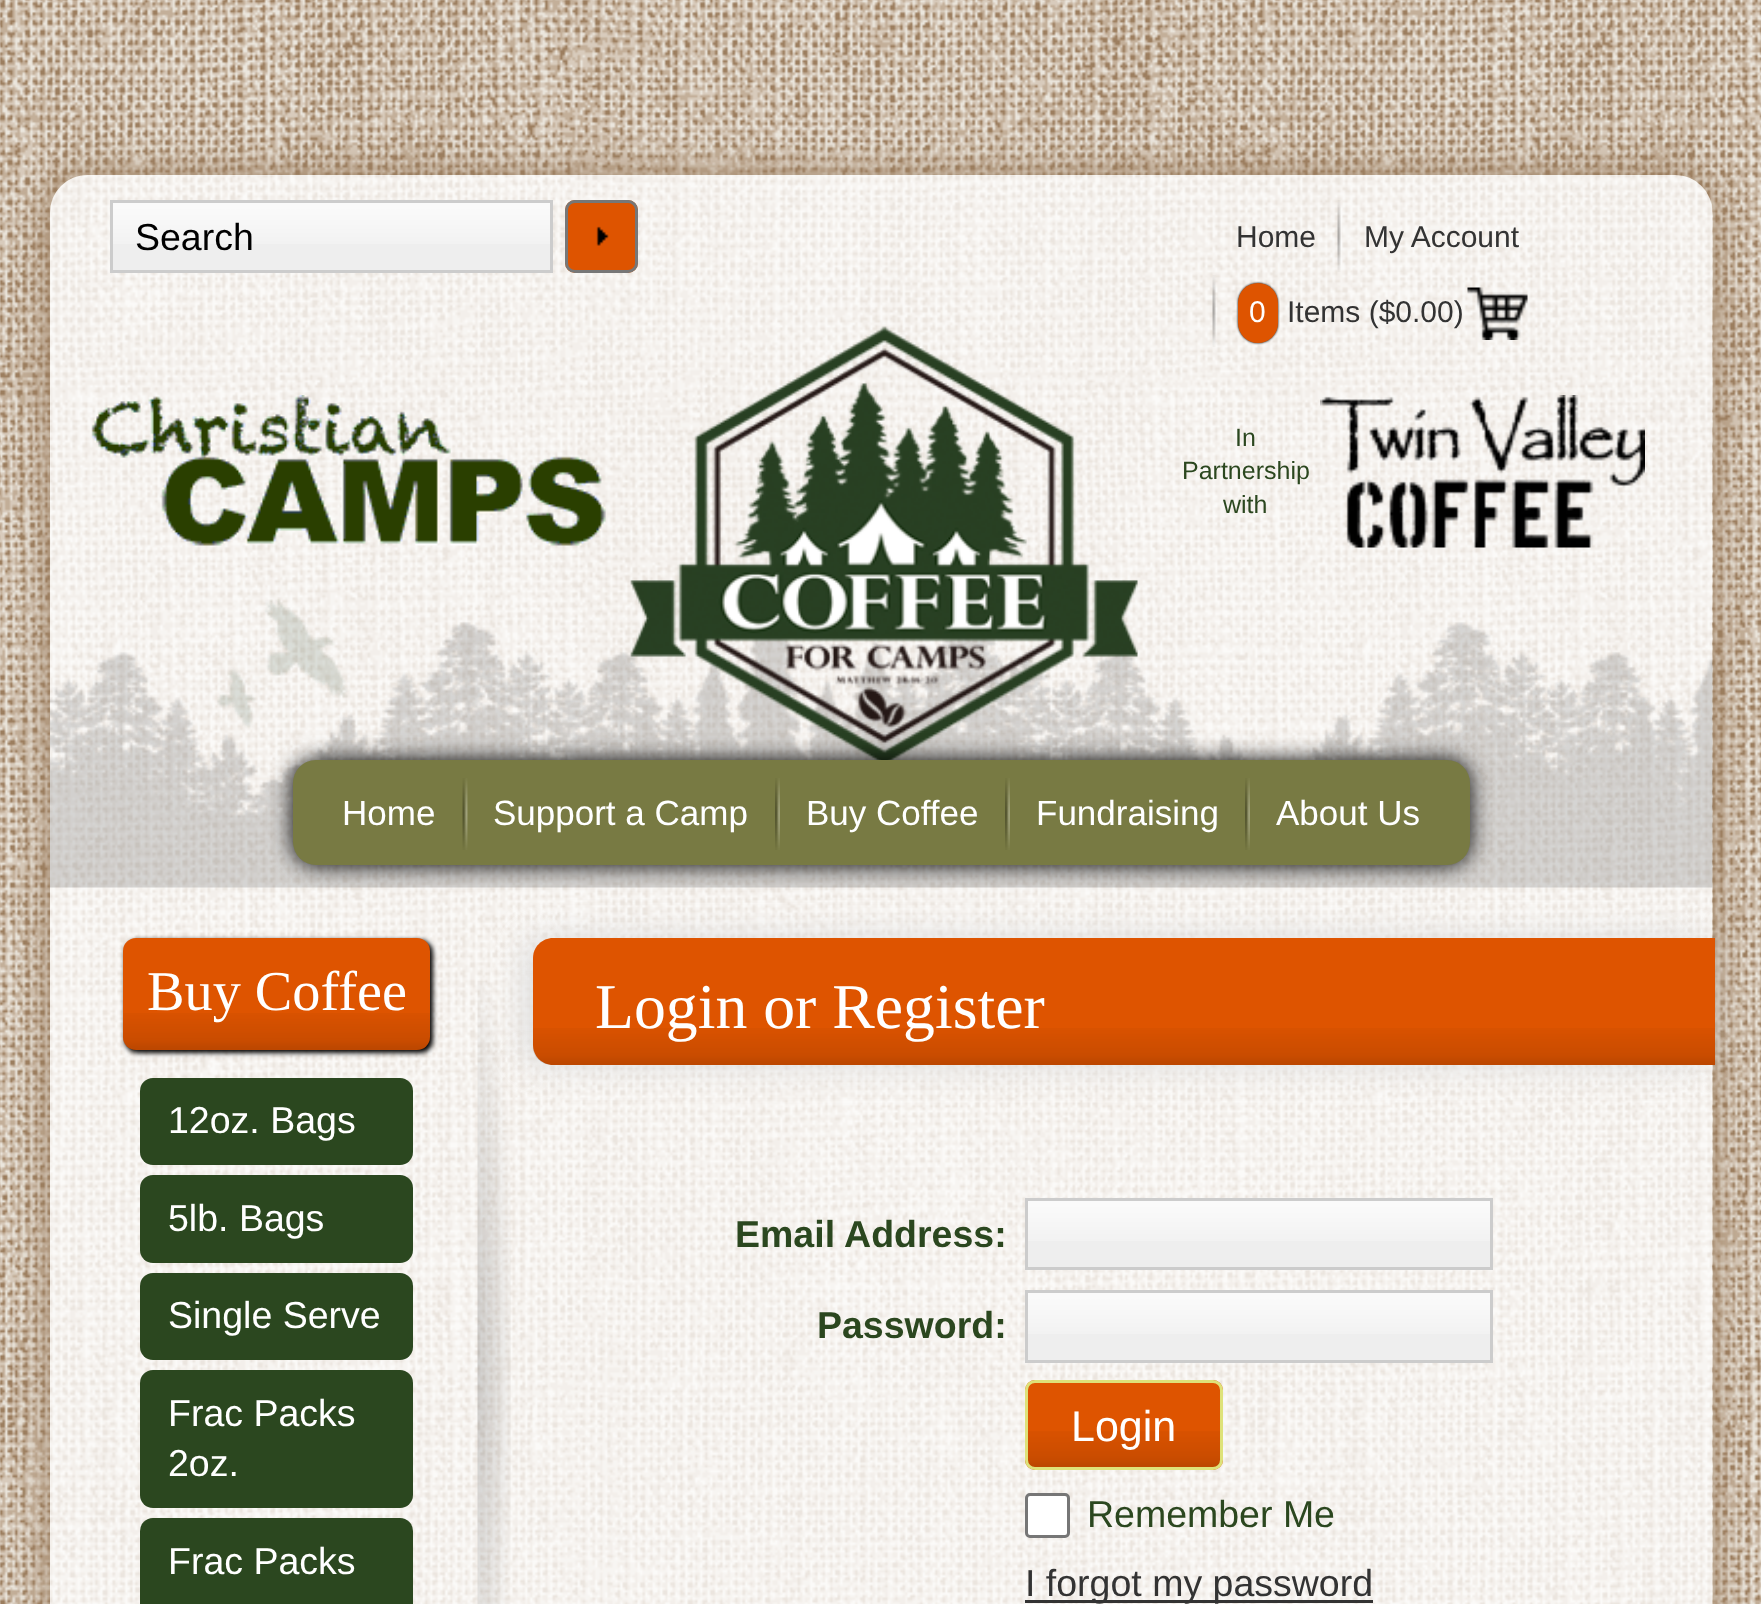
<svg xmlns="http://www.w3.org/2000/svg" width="1761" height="1604">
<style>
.a{font:37.5px Liberation Sans;fill:#000}
.b{font:30px Liberation Sans;fill:#333}
.c{font:30px Liberation Sans;fill:#fff}
.d{font:25px Liberation Sans;fill:#2b471f}
.e{font:35px Liberation Sans;fill:#fff}
.f{font:56.25px Liberation Serif;fill:#fff}
.g{font:37.5px Liberation Sans;fill:#fff}
.h{font:63.75px Liberation Serif;fill:#fff}
.i{font:bold 37.5px Liberation Sans;fill:#2b471f}
.j{font:43px Liberation Sans;fill:#fff}
.k{font:37.5px Liberation Sans;fill:#2b471f}
.l{font:37.5px Liberation Sans;fill:#333}
</style>
<defs>
<clipPath id="clip1"><path d="M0 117h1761v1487h-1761zm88 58h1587c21 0 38 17 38 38v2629c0 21-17 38-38 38h-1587c-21 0-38-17-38-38v-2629c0-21 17-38 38-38z" clip-rule="evenodd"/></clipPath>
</defs>
<rect width="100%" height="100%" fill="#fff"/>
<image href="1.png" x="0" y="0" width="1761" height="1604"/>
<g clip-path="url(#clip1)">
<rect fill="#9c7e5f" filter="blur(19px)" x="50" y="175" width="1663" height="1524" rx="38"/>
</g>
<image href="2.png" x="50" y="175" width="1663" height="1429"/>
<image href="3.png" x="50" y="599" width="1663" height="289"/>
<path fill="#eee" d="M113 203h437v67H113z"/>
<image href="4.png" x="113" y="203" width="437" height="41"/>
<path fill="none" stroke="#ccc" stroke-width="3" d="M111.5 201.5h440v70H111.5z"/>
<rect fill="#de5400" x="565" y="200" width="73" height="73" rx="10"/>
<image href="5.png" x="596" y="226" width="13" height="20"/>
<rect fill="none" stroke="#777" stroke-width="3" x="566.5" y="201.5" width="70" height="70" rx="8.5"/>
<image href="6.png" x="1337" y="200" width="5" height="72"/>
<image href="7.png" x="1212" y="275" width="5" height="72"/>
<rect fill="#000" filter="blur(1px)" x="1238" y="283" width="40" height="60" rx="20"/>
<rect fill="#de5400" x="1238" y="283" width="40" height="60" rx="20"/>
<image href="8.png" x="1467" y="287" width="61" height="53"/>
<image href="9.png" x="91" y="395" width="515" height="151"/>
<image href="10.png" x="630" y="326" width="508" height="434"/>
<image href="11.png" x="1320" y="395" width="325" height="153"/>
<rect fill="#000" filter="blur(11px)" x="293" y="760" width="1177" height="105" rx="23"/>
<rect fill="#787a43" x="293" y="760" width="1177" height="105" rx="23"/>
<image href="12.png" x="462" y="778" width="6" height="72"/>
<image href="13.png" x="775" y="778" width="5" height="72"/>
<image href="13.png" x="1005" y="778" width="5" height="72"/>
<image href="14.png" x="1245" y="778" width="5" height="72"/>
<rect fill="#000" filter="blur(2.5px)" x="125" y="940" width="308" height="113" rx="13"/>
<rect fill="#de5400" x="123" y="938" width="307" height="112" rx="13"/>
<image href="15.png" x="123" y="1013" width="307" height="37"/>
<rect fill="#2b471f" x="140" y="1078" width="273" height="87" rx="13"/>
<rect fill="#2b471f" x="140" y="1175" width="273" height="88" rx="13"/>
<rect fill="#2b471f" x="140" y="1273" width="273" height="87" rx="13"/>
<rect fill="#2b471f" x="140" y="1370" width="273" height="138" rx="13"/>
<rect fill="#2b471f" x="140" y="1518" width="273" height="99" rx="13"/>
<image href="16.png" x="477" y="981" width="34" height="623"/>
<rect fill="#ddd" filter="blur(16px)" x="525" y="938" width="1183" height="127" rx="20"/>
<path fill="#de5400" d="M553 938h1162v127h-1162c-11 0-20-9-20-20v-87c0-11 9-20 20-20z"/>
<image href="17.png" x="533" y="1028" width="1182" height="37"/>
<path fill="#eee" d="M1028 1201h462v66H1028z"/>
<image href="18.png" x="1028" y="1201" width="462" height="40"/>
<path fill="none" stroke="#ccc" stroke-width="3" d="M1026.5 1199.5h465v69H1026.5z"/>
<path fill="#eee" d="M1028 1293h462v67H1028z"/>
<image href="19.png" x="1028" y="1293" width="462" height="41"/>
<path fill="none" stroke="#ccc" stroke-width="3" d="M1026.5 1291.5h465v70H1026.5z"/>
<rect fill="#de5400" x="1025" y="1380" width="198" height="90" rx="10"/>
<image href="20.png" x="1025" y="1431" width="197" height="36"/>
<rect fill="none" stroke="#dee279" stroke-width="3" x="1026.5" y="1381.5" width="195" height="87" rx="8.5"/>
<rect fill="#fff" stroke="#767676" stroke-width="3" x="1026.5" y="1494.5" width="42" height="42" rx="3.5"/>
<path fill="#333" d="M1025 1600h348v3H1025z"/>
<text class="a" x="135" y="250">Search</text>
<text class="b" x="1236" y="247">Home</text>
<text class="b" x="1364" y="247">My Account</text>
<text class="c" x="1249" y="322">0</text>
<text class="b" x="1287" y="322">Items ($0.00)</text>
<text class="d" x="1235" y="446">In</text>
<text class="d" x="1182" y="479">Partnership</text>
<text class="d" x="1223" y="513">with</text>
<text class="e" x="342" y="825">Home</text>
<text class="e" x="493" y="825">Support a Camp</text>
<text class="e" x="806" y="825">Buy Coffee</text>
<text class="e" x="1036" y="825">Fundraising</text>
<text class="e" x="1276" y="825">About Us</text>
<text class="f" x="147" y="1010">Buy Coffee</text>
<text class="g" x="168" y="1133">12oz. Bags</text>
<text class="g" x="168" y="1231">5lb. Bags</text>
<text class="g" x="168" y="1328">Single Serve</text>
<text class="g" x="168" y="1426">Frac Packs</text>
<text class="g" x="168" y="1476">2oz.</text>
<text class="g" x="168" y="1574">Frac Packs</text>
<text class="h" x="595" y="1028">Login or Register</text>
<text class="i" x="735" y="1247">Email Address:</text>
<text class="i" x="817" y="1338">Password:</text>
<text class="j" x="1071" y="1441">Login</text>
<text class="k" x="1087" y="1527">Remember Me</text>
<text class="l" x="1025" y="1596">I forgot my password</text>
</svg>
